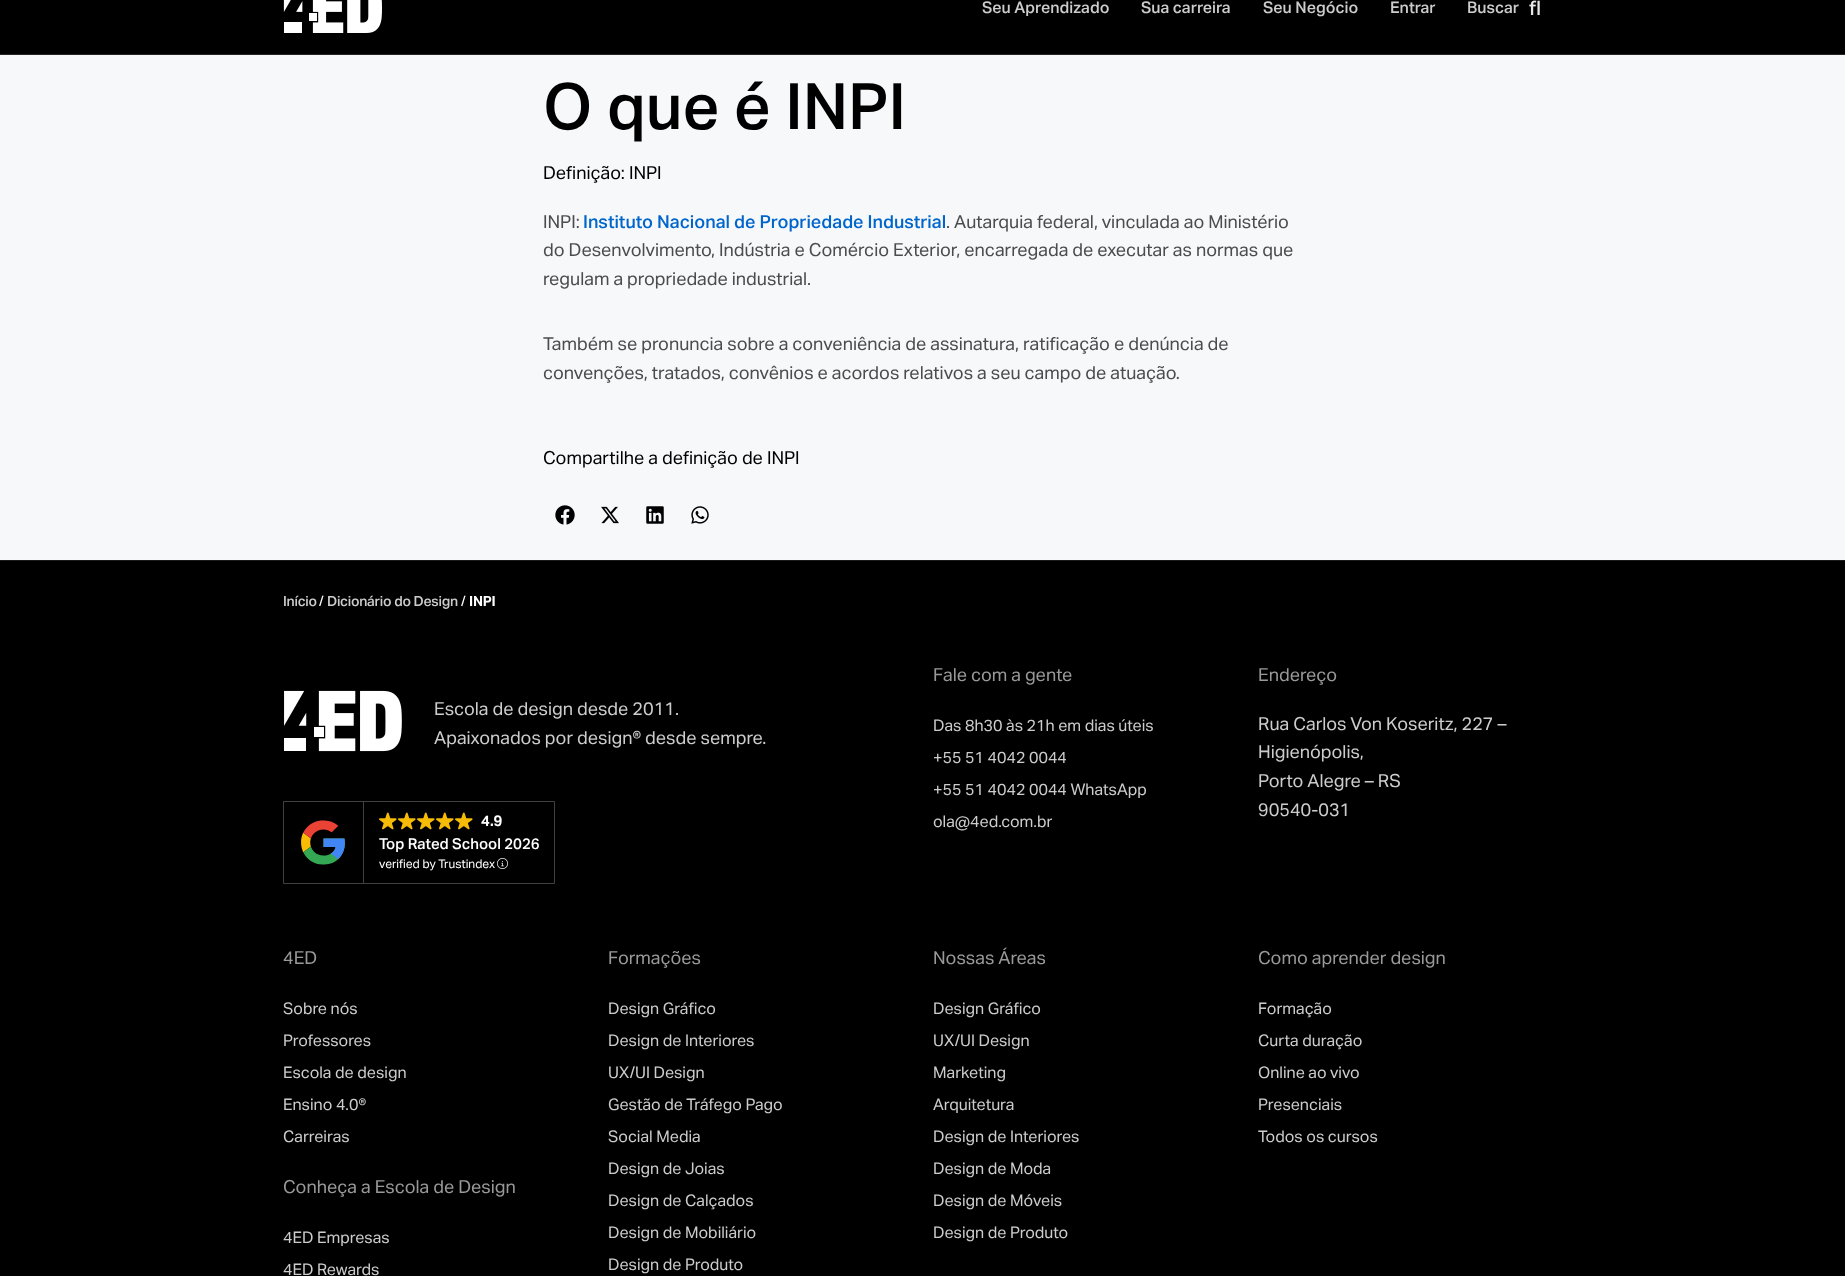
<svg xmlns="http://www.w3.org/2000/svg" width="1845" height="1276">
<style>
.a{font:500 16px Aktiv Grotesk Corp;fill:#ccc}
.b{font:500 64px Aktiv Grotesk Corp;fill:#000}
.c{font:18px Aktiv Grotesk Corp;fill:#000}
.d{font:18px Aktiv Grotesk Corp;fill:#4b4c4f}
.e{font:500 18px Aktiv Grotesk Corp;fill:#06c}
.f{font:500 14px Aktiv Grotesk Corp;letter-spacing:-0.25px;fill:#ccc}
.g{font:14px Aktiv Grotesk Corp;letter-spacing:-0.25px;fill:#fff}
.h{font:bold 14px Aktiv Grotesk Corp;letter-spacing:-0.25px;fill:#fff}
.i{font:18px Aktiv Grotesk Corp;fill:#ccc}
.j{font:bold 15px Aktiv Grotesk Corp;fill:#fff}
.k{font:500 15px Aktiv Grotesk Corp;fill:#fff}
.l{font:12px Aktiv Grotesk Corp;fill:#fff}
.m{font:18px Aktiv Grotesk Corp;fill:#999}
.n{font:16px Aktiv Grotesk Corp;fill:#ccc}
</style>
<rect width="100%" height="100%" fill="#f7f8fa"/>
<path fill="#000" d="M0 0h1845v54H0z"/>
<image href="1.png" x="283" y="0" width="99" height="33"/>
<image href="2.png" x="1529" y="0" width="11" height="15"/>
<path fill="#262626" d="M0 54h1845v1H0z"/>
<image href="3.png" x="555" y="505" width="20" height="20"/>
<image href="4.png" x="601" y="506" width="18" height="18"/>
<image href="5.png" x="646" y="506" width="18" height="18"/>
<image href="6.png" x="691" y="506" width="18" height="18"/>
<path fill="#000" d="M0 561h1845v715H0z"/>
<path fill="#1a1a1a" d="M0 560h1845v1H0z"/>
<image href="7.png" x="284" y="690" width="118" height="62"/>
<path fill="none" stroke="#404040" d="M283.5 801.5h271v82H283.5z"/>
<path fill="#404040" d="M363 802h1v81H363z"/>
<image href="8.png" x="301" y="820" width="44" height="45"/>
<image href="9.png" x="379" y="812" width="18" height="18"/>
<image href="9.png" x="398" y="812" width="18" height="18"/>
<image href="9.png" x="417" y="812" width="18" height="18"/>
<image href="9.png" x="436" y="812" width="18" height="18"/>
<image href="9.png" x="455" y="812" width="18" height="18"/>
<image href="10.png" x="497" y="858" width="11" height="11"/>
<text class="a" x="982" y="13">Seu Aprendizado</text>
<text class="a" x="1141" y="13">Sua carreira</text>
<text class="a" x="1263" y="13">Seu Negócio</text>
<text class="a" x="1390" y="13">Entrar</text>
<text class="a" x="1467" y="13">Buscar</text>
<text class="b" x="543" y="129">O que é INPI</text>
<text class="c" x="543" y="179">Definição: INPI</text>
<text class="d" x="543" y="228">INPI:</text>
<text class="e" x="583" y="228">Instituto Nacional de Propriedade Industrial</text>
<text class="d" x="946" y="228">. Autarquia federal, vinculada ao Ministério</text>
<text class="d" x="543" y="256">do Desenvolvimento, Indústria e Comércio Exterior, encarregada de executar as normas que</text>
<text class="d" x="543" y="285">regulam a propriedade industrial.</text>
<text class="d" x="543" y="350">Também se pronuncia sobre a conveniência de assinatura, ratificação e denúncia de</text>
<text class="d" x="543" y="379">convenções, tratados, convênios e acordos relativos a seu campo de atuação.</text>
<text class="c" x="543" y="464">Compartilhe a definição de INPI</text>
<text class="f" x="283" y="606">Início</text>
<text class="g" x="319" y="606">/</text>
<text class="f" x="327" y="606">Dicionário do Design</text>
<text class="g" x="461" y="606">/</text>
<text class="h" x="469" y="606">INPI</text>
<text class="i" x="434" y="715">Escola de design desde 2011.</text>
<text class="i" x="434" y="744">Apaixonados por design® desde sempre.</text>
<text class="j" x="481" y="826">4.9</text>
<text class="k" x="379" y="849">Top Rated School 2026</text>
<text class="l" x="379" y="868">verified by Trustindex</text>
<text class="m" x="933" y="681">Fale com a gente</text>
<text class="n" x="933" y="731">Das 8h30 às 21h em dias úteis</text>
<text class="n" x="933" y="763">+55 51 4042 0044</text>
<text class="n" x="933" y="795">+55 51 4042 0044 WhatsApp</text>
<text class="n" x="933" y="827">ola@4ed.com.br</text>
<text class="m" x="1258" y="681">Endereço</text>
<text class="i" x="1258" y="730">Rua Carlos Von Koseritz, 227 –</text>
<text class="i" x="1258" y="758">Higienópolis,</text>
<text class="i" x="1258" y="787">Porto Alegre – RS</text>
<text class="i" x="1258" y="816">90540-031</text>
<text class="m" x="283" y="964">4ED</text>
<text class="n" x="283" y="1014">Sobre nós</text>
<text class="n" x="283" y="1046">Professores</text>
<text class="n" x="283" y="1078">Escola de design</text>
<text class="n" x="283" y="1110">Ensino 4.0®</text>
<text class="n" x="283" y="1142">Carreiras</text>
<text class="m" x="283" y="1193">Conheça a Escola de Design</text>
<text class="n" x="283" y="1243">4ED Empresas</text>
<text class="n" x="283" y="1275">4ED Rewards</text>
<text class="m" x="608" y="964">Formações</text>
<text class="n" x="608" y="1014">Design Gráfico</text>
<text class="n" x="608" y="1046">Design de Interiores</text>
<text class="n" x="608" y="1078">UX/UI Design</text>
<text class="n" x="608" y="1110">Gestão de Tráfego Pago</text>
<text class="n" x="608" y="1142">Social Media</text>
<text class="n" x="608" y="1174">Design de Joias</text>
<text class="n" x="608" y="1206">Design de Calçados</text>
<text class="n" x="608" y="1238">Design de Mobiliário</text>
<text class="n" x="608" y="1270">Design de Produto</text>
<text class="m" x="933" y="964">Nossas Áreas</text>
<text class="n" x="933" y="1014">Design Gráfico</text>
<text class="n" x="933" y="1046">UX/UI Design</text>
<text class="n" x="933" y="1078">Marketing</text>
<text class="n" x="933" y="1110">Arquitetura</text>
<text class="n" x="933" y="1142">Design de Interiores</text>
<text class="n" x="933" y="1174">Design de Moda</text>
<text class="n" x="933" y="1206">Design de Móveis</text>
<text class="n" x="933" y="1238">Design de Produto</text>
<text class="m" x="1258" y="964">Como aprender design</text>
<text class="n" x="1258" y="1014">Formação</text>
<text class="n" x="1258" y="1046">Curta duração</text>
<text class="n" x="1258" y="1078">Online ao vivo</text>
<text class="n" x="1258" y="1110">Presenciais</text>
<text class="n" x="1258" y="1142">Todos os cursos</text>
</svg>
